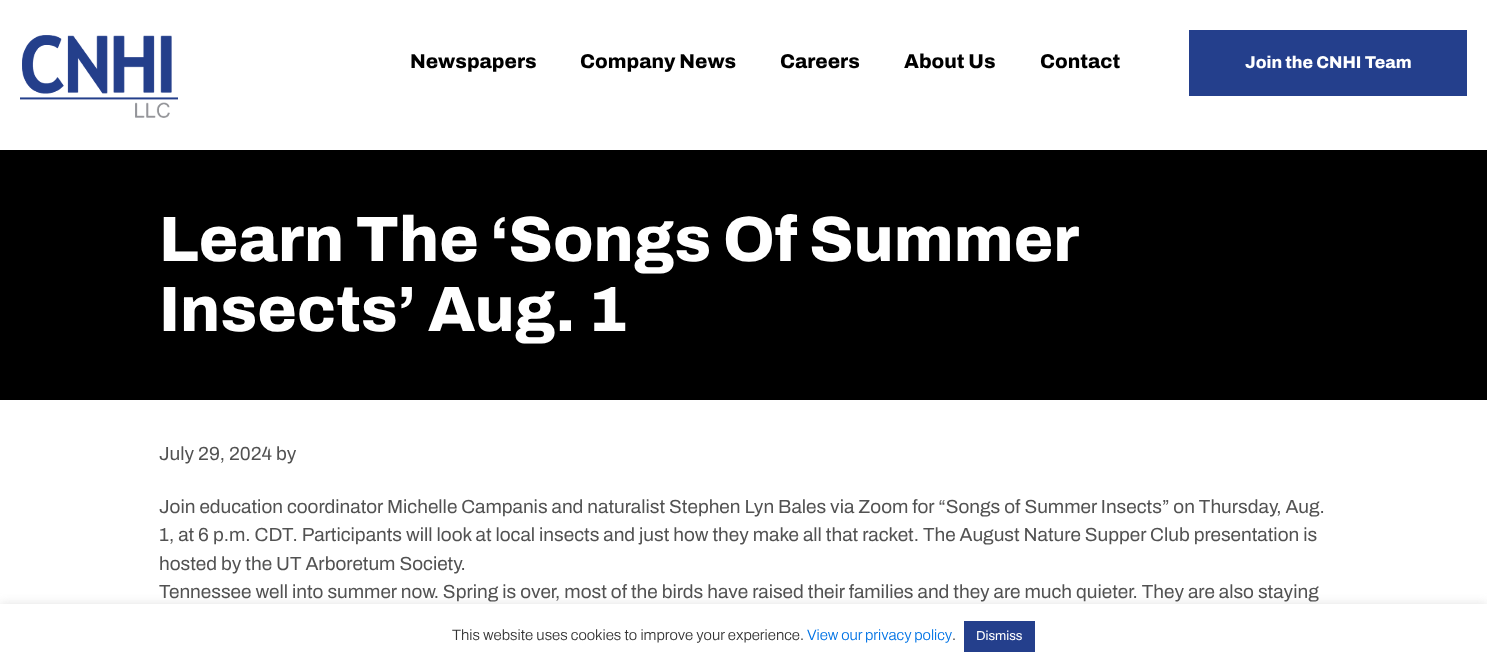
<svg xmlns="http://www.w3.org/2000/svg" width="1487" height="664">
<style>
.a{font:800 20px Archivo;fill:#000}
.b{font:800 17px Archivo;fill:#fff}
.c{font:800 64px Archivo;fill:#fff}
.d{font:19px Archivo;fill:#525252}
.e{font:300 15px Archivo;fill:#333}
.f{font:300 15px Archivo;fill:#0073e5}
.g{font:13px Archivo;fill:#fff}
</style>
<rect width="100%" height="100%" fill="#fff"/>
<image href="1.png" x="20" y="35" width="158" height="83"/>
<path fill="#243f8c" d="M1189 30h278v66H1189z"/>
<path fill="#000" d="M0 150h1487v250H0z"/>
<path fill="#acabab4d" filter="blur(5px)" d="M0 603h1487v60H0z"/>
<path fill="#fff" d="M0 604h1487v60H0z"/>
<path fill="#243f8c" d="M964 621h71v31H964z"/>
<text class="a" x="410" y="68">Newspapers</text>
<text class="a" x="580" y="68">Company News</text>
<text class="a" x="780" y="68">Careers</text>
<text class="a" x="904" y="68">About Us</text>
<text class="a" x="1040" y="68">Contact</text>
<text class="b" x="1245" y="68">Join the CNHI Team</text>
<text class="c" x="159" y="261" word-spacing="-0.5">Learn The ‘Songs Of Summer</text>
<text class="c" x="159" y="331">Insects’ Aug. 1</text>
<text class="d" x="159" y="460">July 29, 2024 by</text>
<text class="d" x="159" y="513">Join education coordinator Michelle Campanis and naturalist Stephen Lyn Bales via Zoom for “Songs of Summer Insects” on Thursday, Aug.</text>
<text class="d" x="159" y="541">1, at 6 p.m. CDT. Participants will look at local insects and just how they make all that racket. The August Nature Supper Club presentation is</text>
<text class="d" x="159" y="570">hosted by the UT Arboretum Society.</text>
<text class="d" x="159" y="598">Tennessee well into summer now. Spring is over, most of the birds have raised their families and they are much quieter. They are also staying</text>
<text class="e" x="452" y="640">This website uses cookies to improve your experience.</text>
<text class="f" x="807" y="640" word-spacing="-0.5">View our privacy policy</text>
<text class="e" x="952" y="640">.</text>
<text class="g" x="976" y="640">Dismiss</text>
</svg>
